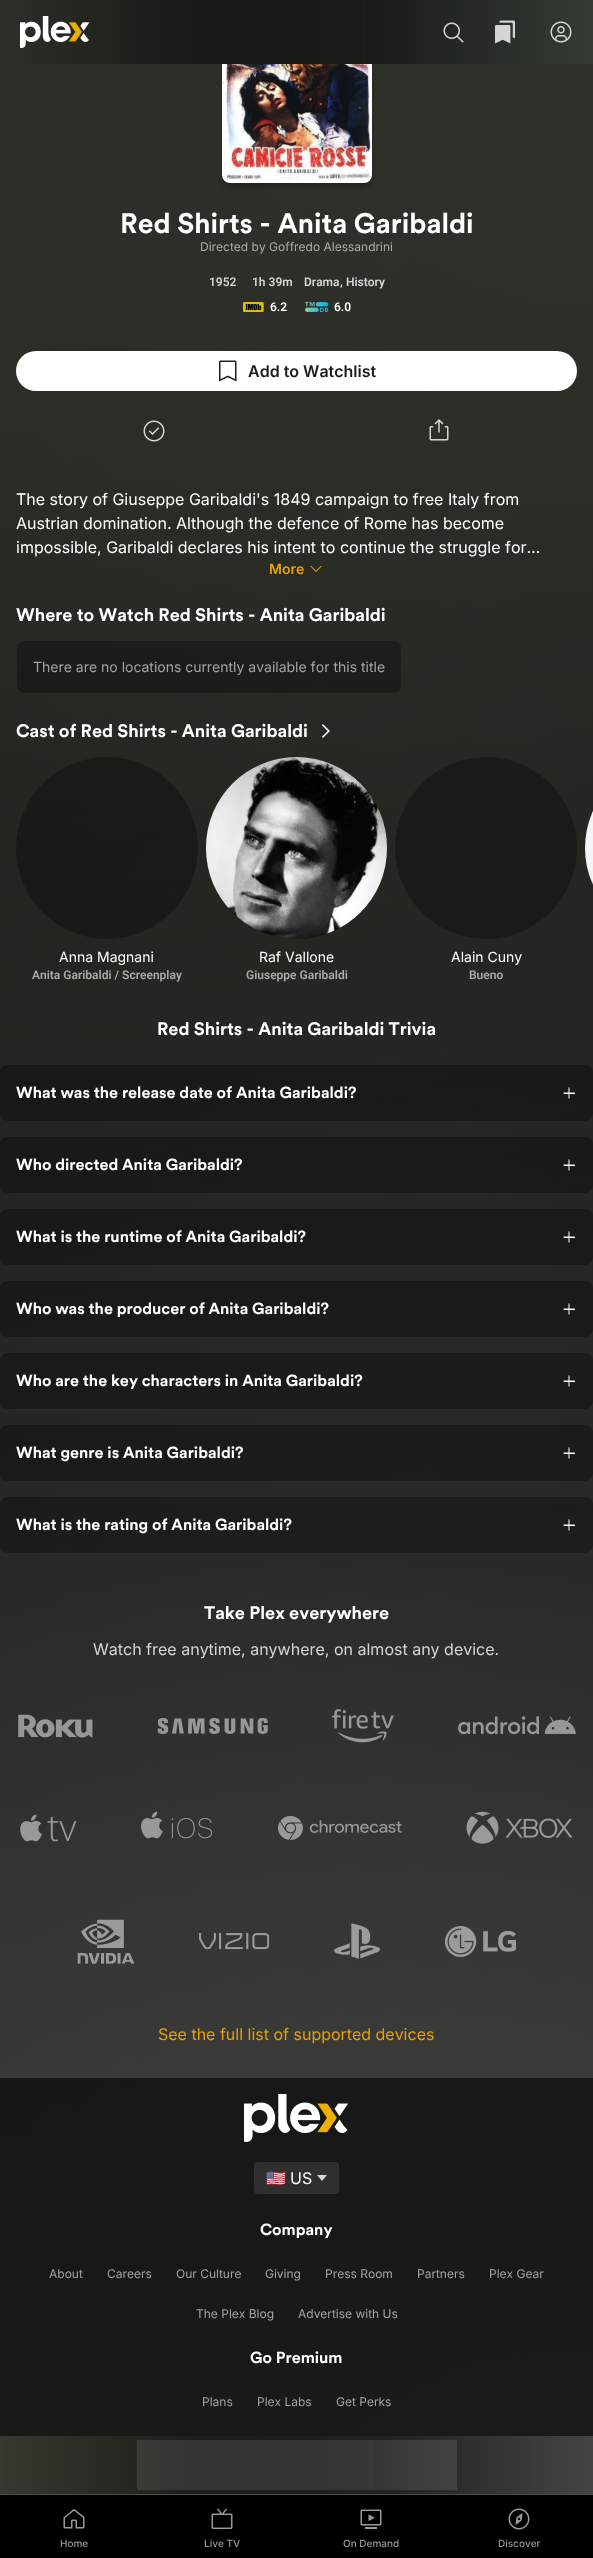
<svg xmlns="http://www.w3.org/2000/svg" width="593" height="2558">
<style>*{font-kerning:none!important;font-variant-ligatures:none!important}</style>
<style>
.a{font:bold 28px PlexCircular;fill:#fff}
.b{font:12px Inter;fill:#abaca9}
.c{font:600 12px Roboto;fill:#d5d5d5}
.d{font:600 12px Roboto;fill:#fff}
.e{font:600 16px Inter;fill:#1c1c1c}
.f{font:16px Inter;fill:#fff}
.g{font:600 14px Inter;fill:#e5a00d}
.h{font:bold 18px PlexCircular;fill:#fff}
.i{font:14px Inter;fill:#a4a5a3}
.j{font:14px Inter;fill:#fff}
.k{font:600 12px Roboto;fill:#abaca9}
.l{font:bold 16px PlexCircular;fill:#fff}
.m{font:16px Inter;fill:#d5d5d5}
.n{font:16px Inter;fill:#e5a00d}
.o{font:16px Noto Color Emoji;fill:#fff}
.p{font:12px Inter;fill:#a4a5a3}
.q{font:500 10px Inter;fill:#999}
</style>
<defs>
<radialGradient id="g1" gradientUnits="userSpaceOnUse" cx="0" cy="2558" r="2558"><stop offset="0" stop-color="#37382f"/><stop offset="0.7" stop-color="#000"/></radialGradient>
<radialGradient id="g2" gradientUnits="userSpaceOnUse" cx="593" cy="2558" r="2558"><stop offset="0" stop-color="#444"/><stop offset="0.7" stop-color="#444" stop-opacity="0"/></radialGradient>
<radialGradient id="g3" gradientUnits="userSpaceOnUse" cx="593" cy="0" r="2558"><stop offset="0" stop-color="#343c33"/><stop offset="0.7" stop-color="#343c33" stop-opacity="0"/></radialGradient>
<radialGradient id="g4" gradientUnits="userSpaceOnUse" cx="0" cy="0" r="2558"><stop offset="0" stop-color="#2e2f28"/><stop offset="0.7" stop-color="#2e2f28" stop-opacity="0"/></radialGradient>
<linearGradient id="g5" gradientUnits="userSpaceOnUse" x1="0" y1="32" x2="593" y2="32"><stop offset="0.3" stop-color="#000"/><stop offset="1" stop-color="#343c33"/></linearGradient>
<linearGradient id="g6" gradientUnits="userSpaceOnUse" x1="0" y1="32" x2="593" y2="32"><stop offset="0" stop-color="#2e2f28"/><stop offset="0.7" stop-color="#2e2f28" stop-opacity="0"/></linearGradient>
<linearGradient id="g7" gradientUnits="userSpaceOnUse" x1="0" y1="2465" x2="593" y2="2465"><stop offset="0.3" stop-color="#000"/><stop offset="1" stop-color="#444"/></linearGradient>
<linearGradient id="g8" gradientUnits="userSpaceOnUse" x1="0" y1="2465" x2="593" y2="2465"><stop offset="0" stop-color="#37382f"/><stop offset="0.7" stop-color="#37382f" stop-opacity="0"/></linearGradient>
</defs>
<rect width="100%" height="100%" fill="#fff"/>
<path fill="url(#g1)" d="M0 64h593v2372H0z"/>
<path fill="url(#g2)" d="M0 845h593v1591H0z"/>
<path fill="url(#g3)" d="M0 64h593v1493H0z"/>
<path fill="url(#g4)" d="M0 64h593v1349H0z"/>
<rect fill="#00000033" filter="blur(2px)" x="222" y="-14" width="150" height="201" rx="8"/>
<rect fill="#0000004d" x="222" y="-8" width="150" height="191" rx="8"/>
<path fill="url(#g5)" d="M2 0h591v64H2z"/>
<path fill="url(#g6)" d="M0 0h367v64H0z"/>
<image href="1.png" x="20" y="16" width="70" height="32"/>
<image href="2.png" x="443" y="22" width="21" height="21"/>
<image href="3.png" x="495" y="20" width="20" height="24"/>
<image href="4.png" x="550" y="21" width="22" height="22"/>
<image href="5.png" x="222" y="64" width="150" height="119"/>
<image href="6.png" x="243" y="302" width="21" height="10"/>
<image href="7.png" x="305" y="302" width="24" height="10"/>
<rect fill="#fff" x="16" y="351" width="561" height="40" rx="20"/>
<image href="8.png" x="219" y="360" width="18" height="22"/>
<image href="9.png" x="143" y="420" width="22" height="22"/>
<image href="10.png" x="429" y="419" width="20" height="22"/>
<image href="11.png" x="310" y="565" width="12" height="7"/>
<rect fill="#0000004d" x="17" y="641" width="384" height="52" rx="8"/>
<image href="12.png" x="321" y="724" width="9" height="14"/>
<path fill="#0000004d" d="M676 757h-83v182h83c-50.5 0-91-40.5-91-91c0-50.5 40.5-91 91-91z"/>
<image href="13.png" x="585" y="811" width="8" height="75"/>
<circle fill="#0000004d" cx="107" cy="848" r="91"/>
<rect fill="#0000004d" x="206" y="757" width="181" height="182" rx="90.5"/>
<image href="14.png" x="206" y="757" width="181" height="182"/>
<circle fill="#0000004d" cx="486" cy="848" r="91"/>
<rect fill="#0000004d" y="1065" width="593" height="56" rx="8"/>
<image href="15.png" x="563" y="1087" width="12" height="12"/>
<path fill="#fff" d="M564 1093h11v1H564z"/>
<rect fill="#0000004d" y="1137" width="593" height="56" rx="8"/>
<image href="16.png" x="563" y="1159" width="12" height="12"/>
<path fill="#fff" d="M564 1165h11v1H564z"/>
<rect fill="#0000004d" y="1209" width="593" height="56" rx="8"/>
<image href="17.png" x="563" y="1231" width="12" height="12"/>
<path fill="#fff" d="M564 1237h11v1H564z"/>
<rect fill="#0000004d" y="1281" width="593" height="56" rx="8"/>
<image href="18.png" x="563" y="1303" width="12" height="12"/>
<path fill="#fff" d="M564 1309h11v1H564z"/>
<rect fill="#0000004d" y="1353" width="593" height="56" rx="8"/>
<image href="19.png" x="563" y="1375" width="12" height="12"/>
<path fill="#fff" d="M564 1381h11v1H564z"/>
<rect fill="#0000004d" y="1425" width="593" height="56" rx="8"/>
<image href="20.png" x="563" y="1447" width="12" height="12"/>
<path fill="#fff" d="M564 1453h11v1H564z"/>
<rect fill="#0000004d" y="1497" width="593" height="56" rx="8"/>
<image href="21.png" x="563" y="1519" width="12" height="12"/>
<path fill="#fff" d="M564 1525h11v1H564z"/>
<image href="22.png" x="18" y="1714" width="75" height="24"/>
<image href="23.png" x="157" y="1718" width="111" height="16"/>
<image href="24.png" x="332" y="1709" width="62" height="34"/>
<image href="25.png" x="458" y="1716" width="118" height="19"/>
<image href="26.png" x="20" y="1814" width="57" height="28"/>
<image href="27.png" x="141" y="1811" width="72" height="28"/>
<image href="28.png" x="278" y="1816" width="124" height="24"/>
<image href="29.png" x="466" y="1811" width="107" height="33"/>
<image href="30.png" x="77" y="1919" width="57" height="45"/>
<image href="31.png" x="199" y="1933" width="71" height="17"/>
<image href="32.png" x="334" y="1923" width="46" height="36"/>
<image href="33.png" x="445" y="1926" width="71" height="31"/>
<path fill="#00000099" d="M0 2078h593v358H0z"/>
<image href="34.png" x="244" y="2094" width="104" height="48"/>
<rect fill="#2f2f2f" x="254" y="2162" width="85" height="32" rx="4"/>
<path fill="#d5d5d5" d="M327 2175l-5 6l-5-6z"/>
<path fill="url(#g7)" d="M2 2436h591v58H2z"/>
<path fill="url(#g8)" d="M0 2436h374v58H0z"/>
<path fill="#ffffff1a" d="M137 2440h320v50H137z"/>
<path fill="#000" d="M0 2495h593v63H0z"/>
<path fill="#4d4d4d" d="M0 2494h593v1H0z"/>
<image href="35.png" x="63" y="2509" width="22" height="20"/>
<image href="36.png" x="211" y="2509" width="22" height="20"/>
<image href="37.png" x="360" y="2509" width="22" height="20"/>
<image href="38.png" x="508" y="2508" width="22" height="22"/>
<text class="a" x="120" y="233">Red Shirts - Anita Garibaldi</text>
<text class="b" x="200" y="251">Directed by Goffredo Alessandrini</text>
<text class="c" x="209" y="286">1952</text>
<text class="c" x="252" y="286">1h 39m</text>
<text class="c" x="304" y="286">Drama</text>
<text class="c" x="340" y="286">,</text>
<text class="c" x="346" y="286">History</text>
<text class="d" x="270" y="311">6.2</text>
<text class="d" x="334" y="311">6.0</text>
<text class="e" x="248" y="377">Add to Watchlist</text>
<text class="f" x="16" y="505">The story of Giuseppe Garibaldi's 1849 campaign to free Italy from</text>
<text class="f" x="16" y="529">Austrian domination. Although the defence of Rome has become</text>
<text class="f" x="16" y="553">impossible, Garibaldi declares his intent to continue the struggle for…</text>
<text class="g" x="269" y="574">More</text>
<text class="h" x="16" y="621">Where to Watch Red Shirts - Anita Garibaldi</text>
<text class="i" x="33" y="672">There are no locations currently available for this title</text>
<text class="h" x="16" y="737">Cast of Red Shirts - Anita Garibaldi</text>
<text class="j" x="59" y="962">Anna Magnani</text>
<text class="k" x="32" y="979">Anita Garibaldi / Screenplay</text>
<text class="j" x="259" y="962">Raf Vallone</text>
<text class="k" x="246" y="979">Giuseppe Garibaldi</text>
<text class="j" x="451" y="962">Alain Cuny</text>
<text class="k" x="469" y="979">Bueno</text>
<text class="h" x="157" y="1035">Red Shirts - Anita Garibaldi Trivia</text>
<text class="l" x="16" y="1098">What was the release date of Anita Garibaldi?</text>
<text class="l" x="16" y="1170">Who directed Anita Garibaldi?</text>
<text class="l" x="16" y="1242">What is the runtime of Anita Garibaldi?</text>
<text class="l" x="16" y="1314">Who was the producer of Anita Garibaldi?</text>
<text class="l" x="16" y="1386">Who are the key characters in Anita Garibaldi?</text>
<text class="l" x="16" y="1458">What genre is Anita Garibaldi?</text>
<text class="l" x="16" y="1530">What is the rating of Anita Garibaldi?</text>
<text class="h" x="204" y="1619">Take Plex everywhere</text>
<text class="m" x="93" y="1655">Watch free anytime, anywhere, on almost any device.</text>
<text class="n" x="158" y="2040">See the full list of supported devices</text>
<text class="o" x="266" y="2184">🇺🇸</text>
<text class="f" x="290" y="2184">US</text>
<text class="l" x="260" y="2235">Company</text>
<text class="p" x="49" y="2278">About</text>
<text class="p" x="107" y="2278">Careers</text>
<text class="p" x="176" y="2278">Our Culture</text>
<text class="p" x="265" y="2278">Giving</text>
<text class="p" x="325" y="2278">Press Room</text>
<text class="p" x="417" y="2278">Partners</text>
<text class="p" x="489" y="2278">Plex Gear</text>
<text class="p" x="196" y="2318">The Plex Blog</text>
<text class="p" x="298" y="2318">Advertise with Us</text>
<text class="l" x="250" y="2363">Go Premium</text>
<text class="p" x="202" y="2406">Plans</text>
<text class="p" x="257" y="2406">Plex Labs</text>
<text class="p" x="336" y="2406">Get Perks</text>
<text class="q" x="60" y="2547">Home</text>
<text class="q" x="204" y="2547">Live TV</text>
<text class="q" x="343" y="2547">On Demand</text>
<text class="q" x="498" y="2547">Discover</text>
</svg>
